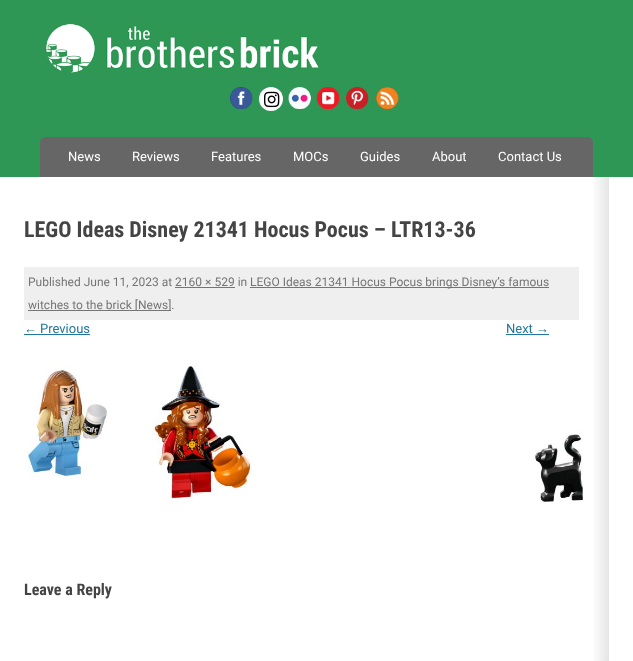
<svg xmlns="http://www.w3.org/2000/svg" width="633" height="661">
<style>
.a{font:13px Roboto;fill:#fff}
.b{font:bold 22px Roboto Condensed;fill:#444}
.c{font:12px Roboto;fill:#757575}
.d{font:13px Liberation Sans;fill:#21769b}
.e{font:13px Roboto;fill:#21769b}
.f{font:bold 16px Roboto Condensed;fill:#444}
</style>
<defs>
<linearGradient id="g1" gradientUnits="userSpaceOnUse" x1="24" y1="647" x2="609" y2="647"><stop offset="0.97" stop-color="#fff"/><stop offset="1" stop-color="#e5e5e5"/></linearGradient>
</defs>
<rect width="100%" height="100%" fill="#fff"/>
<path fill="#2e9755" d="M0 0h633v177H0z"/>
<image href="1.png" x="45" y="24" width="274" height="49"/>
<image href="2.png" x="230" y="87" width="23" height="22"/>
<circle fill="#fff" cx="271" cy="99" r="12"/>
<image href="3.png" x="264" y="91" width="16" height="17"/>
<image href="4.png" x="288" y="87" width="23" height="22"/>
<image href="5.png" x="316" y="87" width="24" height="22"/>
<image href="6.png" x="346" y="87" width="23" height="22"/>
<image href="7.png" x="376" y="87" width="23" height="22"/>
<path fill="#666" d="M46 137h541c3.5 0 6 2.5 6 6v34h-553v-34c0-3.5 2.5-6 6-6z"/>
<path fill="url(#g1)" d="M593 177h16v484H593z"/>
<path fill="#efefef" d="M24 267h555v53H24z"/>
<path fill="#757575" d="M250 287h299v1H250z"/>
<path fill="#757575" d="M175 287h60v1H175z"/>
<path fill="#757575" d="M28 310h143v1H28z"/>
<path fill="#21769b" d="M24 334h66v1H24z"/>
<path fill="#21769b" d="M506 334h43v1H506z"/>
<image href="8.png" x="28" y="366" width="555" height="136"/>
<text class="a" x="68" y="161">News</text>
<text class="a" x="132" y="161">Reviews</text>
<text class="a" x="211" y="161">Features</text>
<text class="a" x="293" y="161">MOCs</text>
<text class="a" x="360" y="161">Guides</text>
<text class="a" x="432" y="161">About</text>
<text class="a" x="498" y="161">Contact Us</text>
<text class="b" x="24" y="237">LEGO Ideas Disney 21341 Hocus Pocus – LTR13-36</text>
<text class="c" x="28" y="286">Published June 11, 2023 at 2160 × 529 in</text>
<text class="c" x="250" y="286">LEGO Ideas 21341 Hocus Pocus brings Disney’s famous</text>
<text class="c" x="28" y="309">witches to the brick [News].</text>
<text class="d" x="24" y="333">←</text>
<text class="e" x="40" y="333">Previous</text>
<text class="e" x="506" y="333">Next</text>
<text class="d" x="536" y="333">→</text>
<text class="f" x="24" y="595">Leave a Reply</text>
</svg>
